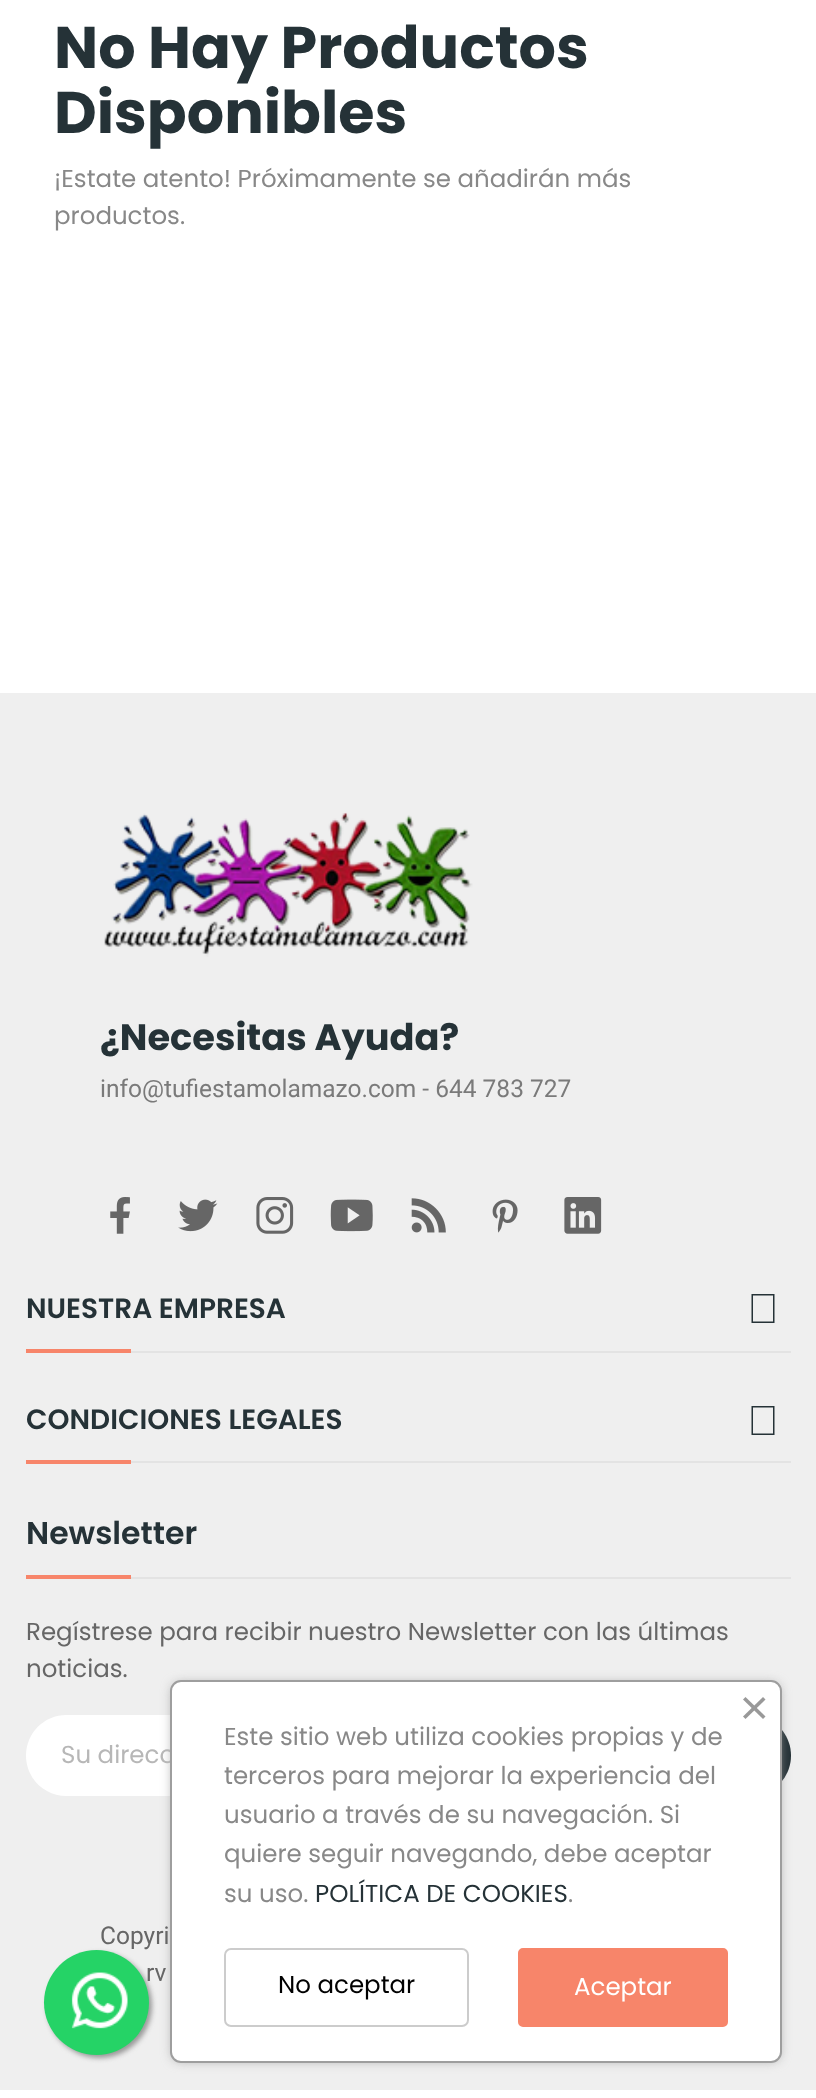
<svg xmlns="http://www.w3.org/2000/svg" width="816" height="2098">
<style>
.a{font:bold 58.75px Poppins;fill:#253237}
.b{font:24.5px Poppins;fill:#888}
.c{font:bold 36.75px Poppins;fill:#253237}
.d{font:24.5px Roboto;fill:#7a7a7a}
.e{font:600 28px Poppins;fill:#253237}
.f{font:600 31.5px Poppins;fill:#253237}
.g{font:24.5px Poppins;fill:#666}
.h{font:24.5px Poppins;fill:#b7b7b7}
.i{font:24.5px Roboto;fill:#666}
.j{font:24.5px Poppins;fill:#253237}
.k{font:24.5px Poppins;fill:#000}
.l{font:24.5px Poppins;fill:#fff}
</style>
<rect width="100%" height="100%" fill="#fff"/>
<path fill="#efefef" d="M0 693h816v1397H0z"/>
<image href="1.png" x="104" y="812" width="369" height="145"/>
<image href="2.png" x="110" y="1197" width="20" height="37"/>
<image href="3.png" x="178" y="1199" width="40" height="33"/>
<image href="4.png" x="256" y="1197" width="38" height="37"/>
<image href="5.png" x="330" y="1199" width="43" height="33"/>
<image href="6.png" x="411" y="1198" width="35" height="35"/>
<image href="7.png" x="492" y="1199" width="26" height="34"/>
<image href="8.png" x="564" y="1197" width="38" height="37"/>
<path fill="#e3e3e3" d="M131 1351h660v2H131z"/>
<path fill="#253237" d="M751.5 1294h23v29h-23zm1.5 1.5v26h20v-26z"/>
<path fill="#f7856a" d="M26 1349h105v4H26z"/>
<path fill="#e3e3e3" d="M131 1461h660v2H131z"/>
<path fill="#253237" d="M751.5 1406h23v29h-23zm1.5 1.5v26h20v-26z"/>
<path fill="#f7856a" d="M26 1460h105v4H26z"/>
<path fill="#e3e3e3" d="M131 1577h660v2H131z"/>
<path fill="#f7856a" d="M26 1575h105v4H26z"/>
<path fill="#fff" d="M66.5 1715h521.5v81h-521.5c-22.5 0-40.5-18-40.5-40.5c0-22.5 18-40.5 40.5-40.5z"/>
<path fill="#253237" d="M588 1715h162.5c22.5 0 40.5 18 40.5 40.5c0 22.5-18 40.5-40.5 40.5h-162.5z"/>
<rect fill="#999" filter="blur(2.5px)" x="47" y="1953" width="105" height="105" rx="52.5"/>
<rect fill="#9e9e9e" filter="blur(6px)" x="173" y="1684" width="606" height="376" rx="7"/>
<text class="a" x="54" y="68">No Hay Productos</text>
<text class="a" x="54" y="133">Disponibles</text>
<text class="b" x="54" y="187">¡Estate atento! Próximamente se añadirán más</text>
<text class="b" x="54" y="224">productos.</text>
<text class="c" x="100" y="1050">¿Necesitas Ayuda?</text>
<text class="d" x="100" y="1097">info@tufiestamolamazo.com - 644 783 727</text>
<text class="e" x="26" y="1318">NUESTRA EMPRESA</text>
<text class="e" x="26" y="1429">CONDICIONES LEGALES</text>
<text class="f" x="26" y="1544">Newsletter</text>
<text class="g" x="26" y="1640">Regístrese para recibir nuestro Newsletter con las últimas</text>
<text class="g" x="26" y="1677">noticias.</text>
<text class="h" x="61" y="1763">Su direcc</text>
<text class="i" x="100" y="1944">Copyri</text>
<text class="i" x="146" y="1981">rv</text>
<circle fill="#25d366" cx="96.5" cy="2002.5" r="52.5"/>
<image href="9.png" x="71" y="1972" width="57" height="57"/>
<rect fill="#fff" stroke="#9e9e9e" stroke-width="2" x="171" y="1681" width="610" height="381" rx="10"/>
<path fill="#999" d="M743 1716.5l20-19.5l2.5 2.5l-20 19.5z"/>
<path fill="#999" d="M745.5 1697l20 19.5l-2.5 2.5l-20-19.5z"/>
<text class="b" x="224" y="1745">Este sitio web utiliza cookies propias y de</text>
<text class="b" x="224" y="1784">terceros para mejorar la experiencia del</text>
<text class="b" x="224" y="1823">usuario a través de su navegación. Si</text>
<text class="b" x="224" y="1862">quiere seguir navegando, debe aceptar</text>
<text class="b" x="224" y="1902">su uso.</text>
<text class="j" x="315" y="1902">POLÍTICA DE COOKIES</text>
<text class="b" x="568" y="1902">.</text>
<rect fill="none" stroke="#ccc" stroke-width="2" x="225" y="1949" width="243" height="77" rx="6"/>
<text class="k" x="278" y="1993">No aceptar</text>
<rect fill="#f7856a" stroke="#f7856a" stroke-width="4" x="520" y="1950" width="206" height="75" rx="3"/>
<text class="l" x="574" y="1995">Aceptar</text>
</svg>
